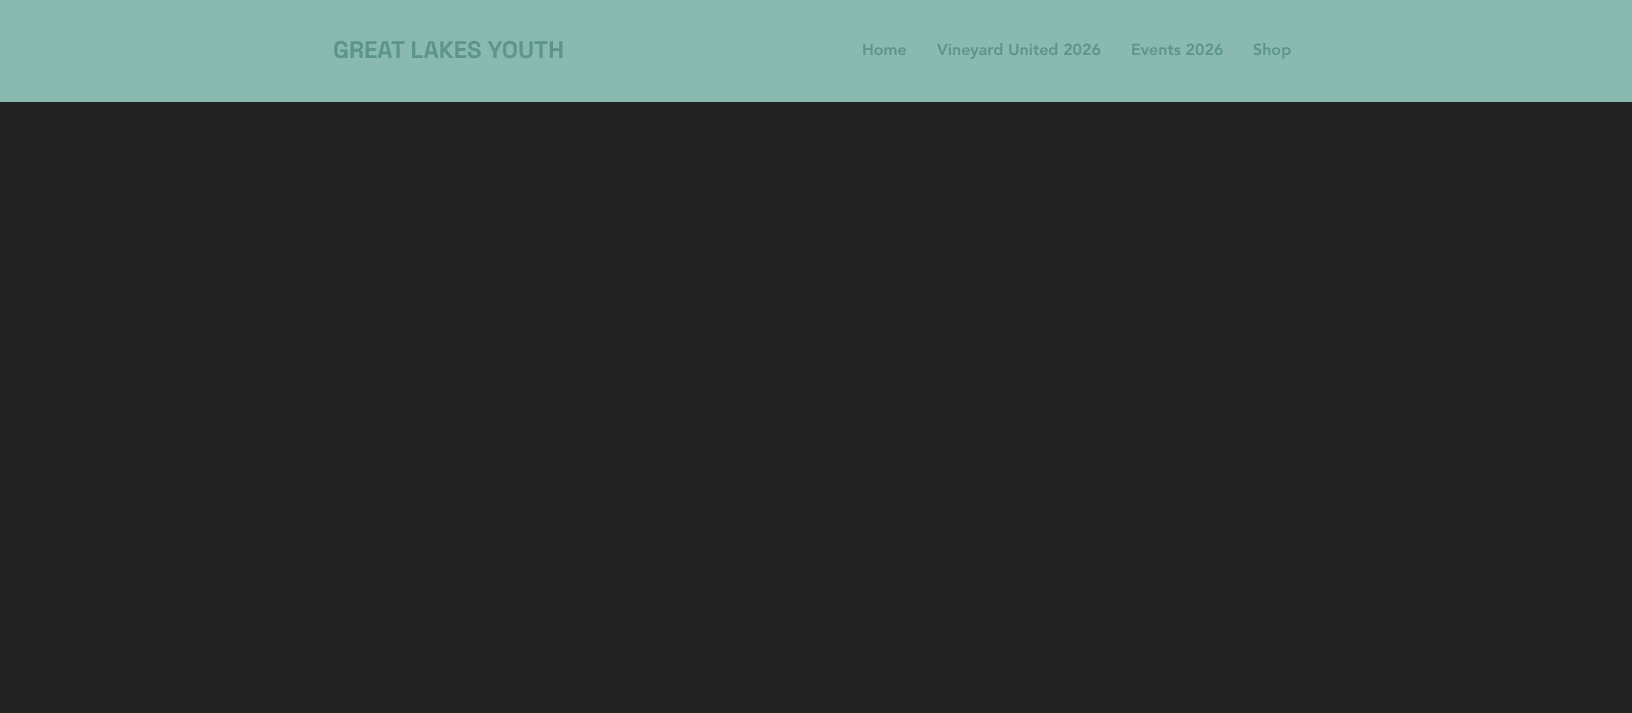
<svg xmlns="http://www.w3.org/2000/svg" width="1632" height="713">
<style>
.a{font:bold 24px Space Grotesk;fill:#5d958b}
.b{font:900 16px 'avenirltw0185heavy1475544';fill:#5d958b}
</style>
<rect width="100%" height="100%" fill="#242323"/>
<path fill="#8ab9b0" d="M0 0h1632v102H0z"/>
<text class="a" x="333" y="58">GREAT LAKES YOUTH</text>
<text class="b" x="862" y="55">Home</text>
<text class="b" x="937" y="55">Vineyard United 2026</text>
<text class="b" x="1131" y="55">Events 2026</text>
<text class="b" x="1253" y="55">Shop</text>
</svg>
